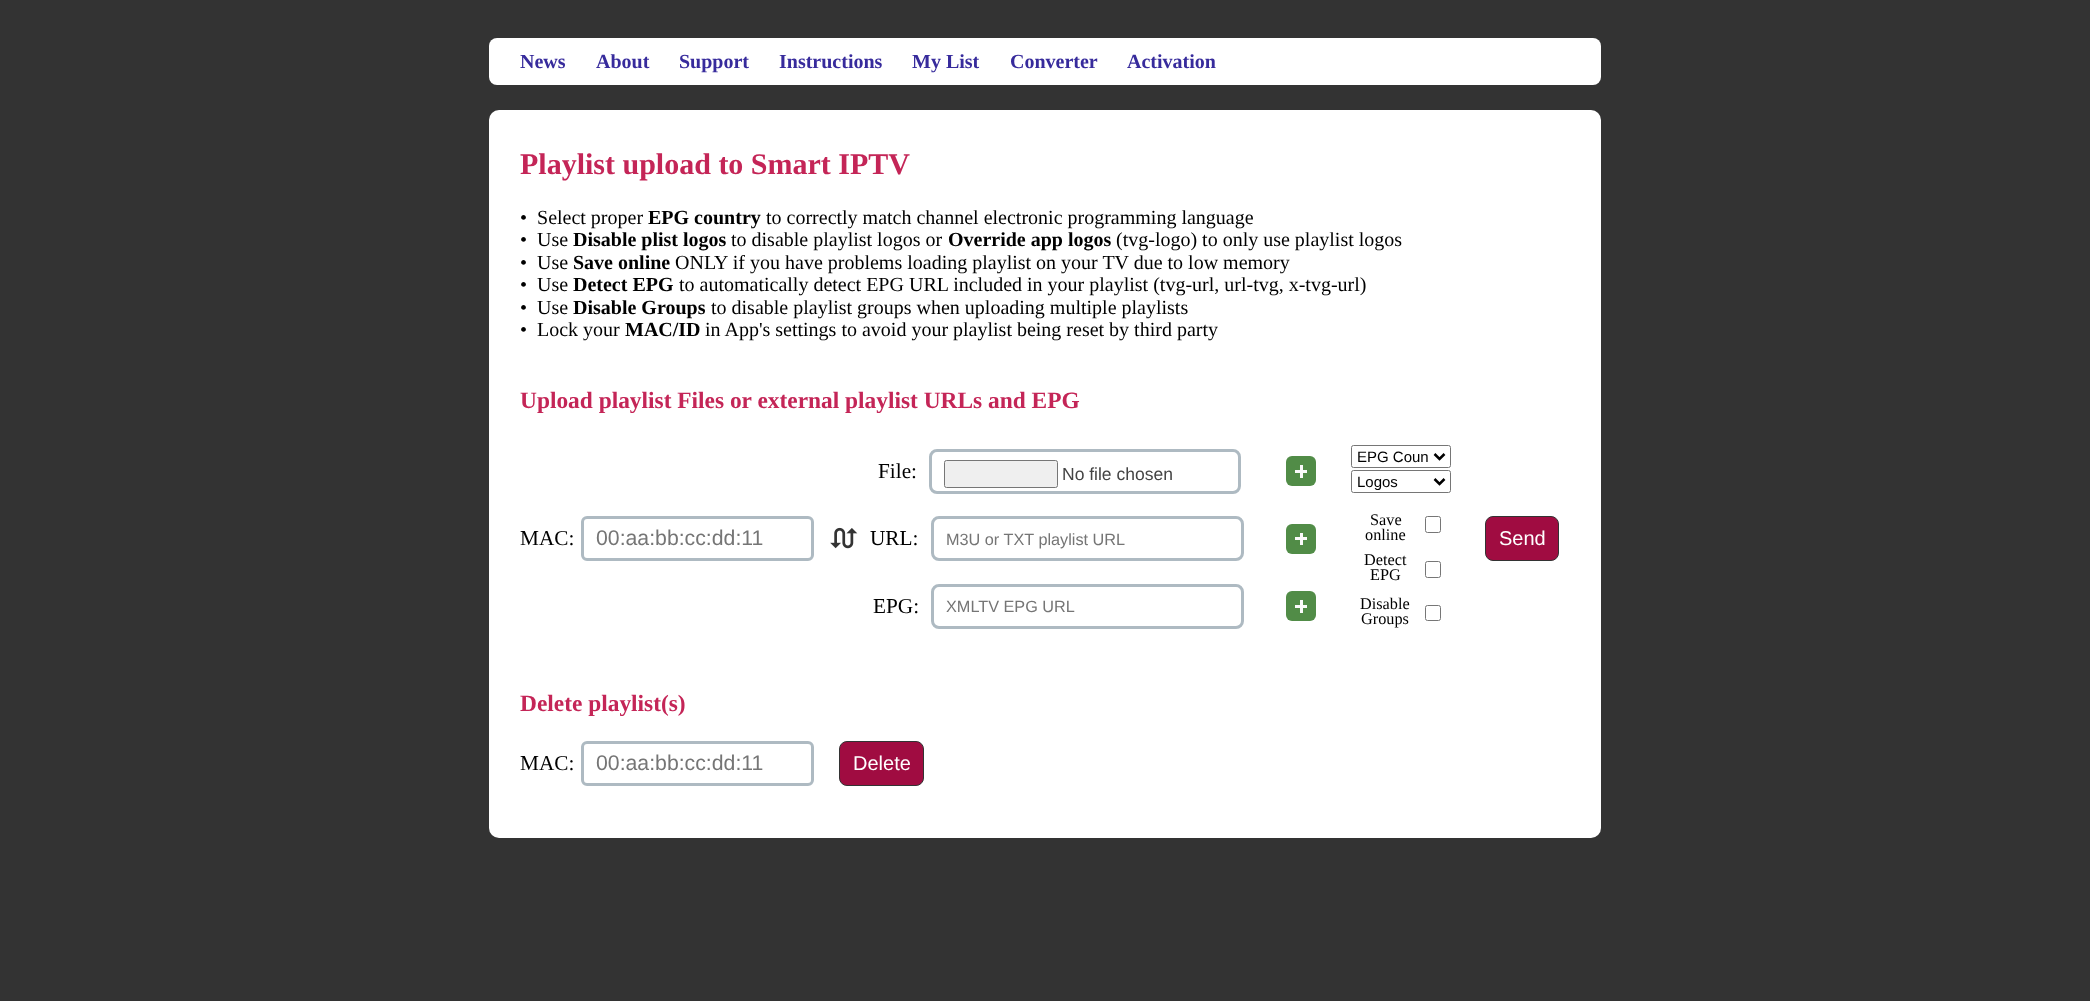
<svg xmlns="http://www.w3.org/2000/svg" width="2090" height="1001">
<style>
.a{font:bold 20px Liberation Serif;fill:#372b9c}
.b{font:bold 30px Liberation Serif;fill:#c42557}
.c{font:20px Liberation Serif;fill:#000}
.d{font:bold 20px Liberation Serif;fill:#000}
.e{font:bold 23.4px Liberation Serif;fill:#c42557}
.f{font:21.25px Liberation Serif;fill:#000}
.g{font:17.5px Liberation Sans;fill:#444}
.h{font:15px Liberation Sans;fill:#000}
.i{font:16.25px Liberation Serif;fill:#000}
.j{font:21.25px Liberation Sans;fill:#757575}
.k{font:20px Liberation Sans;fill:#fff}
.l{font:16.25px Liberation Sans;fill:#757575}
</style>
<rect width="100%" height="100%" fill="#333"/>
<rect fill="#fff" x="489" y="38" width="1112" height="47" rx="8"/>
<rect fill="#fff" x="489" y="110" width="1112" height="728" rx="10"/>
<rect fill="none" stroke="#aebac2" stroke-width="3" x="930.5" y="450.5" width="309" height="42" rx="6.5"/>
<rect fill="#efefef" stroke="#767676" x="944.5" y="460.5" width="113" height="27" rx="2"/>
<rect fill="#518c47" x="1286" y="456" width="30" height="30" rx="6"/>
<path fill="#fafafa" d="M1295 470h12v3H1295z"/>
<path fill="#fafafa" d="M1300 465h3v13H1300z"/>
<rect fill="none" stroke="#767676" x="1351.5" y="445.5" width="99" height="22" rx="2"/>
<path fill="none" stroke="#000" stroke-width="2.5" d="M1434.5 454l5 5l5-5"/>
<rect fill="none" stroke="#767676" x="1351.5" y="470.5" width="99" height="22" rx="2"/>
<path fill="none" stroke="#000" stroke-width="2.5" d="M1434.5 479l5 5l5-5"/>
<rect fill="none" stroke="#767676" x="1425.5" y="516.5" width="15" height="16" rx="2"/>
<rect fill="none" stroke="#767676" x="1425.5" y="561.5" width="15" height="16" rx="2"/>
<rect fill="none" stroke="#767676" x="1425.5" y="605.5" width="15" height="15" rx="2"/>
<rect fill="none" stroke="#aebac2" stroke-width="3" x="582.5" y="517.5" width="230" height="42" rx="4.5"/>
<image href="1.png" x="830" y="527" width="28" height="22"/>
<rect fill="#a00c41" stroke="#333" x="1485.5" y="516.5" width="73" height="44" rx="7.5"/>
<rect fill="none" stroke="#aebac2" stroke-width="3" x="932.5" y="517.5" width="310" height="42" rx="6.5"/>
<rect fill="#518c47" x="1286" y="524" width="30" height="30" rx="6"/>
<path fill="#fafafa" d="M1295 537h12v3H1295z"/>
<path fill="#fafafa" d="M1300 533h3v12H1300z"/>
<rect fill="none" stroke="#aebac2" stroke-width="3" x="932.5" y="585.5" width="310" height="42" rx="6.5"/>
<rect fill="#518c47" x="1286" y="591" width="30" height="30" rx="6"/>
<path fill="#fafafa" d="M1295 605h12v3H1295z"/>
<path fill="#fafafa" d="M1300 600h3v13H1300z"/>
<rect fill="none" stroke="#aebac2" stroke-width="3" x="582.5" y="742.5" width="230" height="42" rx="4.5"/>
<rect fill="#a00c41" stroke="#333" x="839.5" y="741.5" width="84" height="44" rx="7.5"/>
<text class="a" x="520" y="68">News</text>
<text class="a" x="596" y="68">About</text>
<text class="a" x="679" y="68">Support</text>
<text class="a" x="779" y="68">Instructions</text>
<text class="a" x="912" y="68">My List</text>
<text class="a" x="1010" y="68">Converter</text>
<text class="a" x="1127" y="68">Activation</text>
<text class="b" x="520" y="174">Playlist upload to Smart IPTV</text>
<text class="c" xml:space="preserve" x="520" y="224">•  Select proper</text>
<text class="d" x="648" y="224">EPG country</text>
<text class="c" x="766" y="224">to correctly match channel electronic programming language</text>
<text class="c" xml:space="preserve" x="520" y="246">•  Use</text>
<text class="d" x="573" y="246">Disable plist logos</text>
<text class="c" x="731" y="246">to disable playlist logos or</text>
<text class="d" x="948" y="246">Override app logos</text>
<text class="c" x="1116" y="246">(tvg-logo) to only use playlist logos</text>
<text class="c" xml:space="preserve" x="520" y="269">•  Use</text>
<text class="d" x="573" y="269">Save online</text>
<text class="c" x="675" y="269">ONLY if you have problems loading playlist on your TV due to low memory</text>
<text class="c" xml:space="preserve" x="520" y="291">•  Use</text>
<text class="d" x="573" y="291">Detect EPG</text>
<text class="c" x="679" y="291">to automatically detect EPG URL included in your playlist (tvg-url, url-tvg, x-tvg-url)</text>
<text class="c" xml:space="preserve" x="520" y="314">•  Use</text>
<text class="d" x="573" y="314">Disable Groups</text>
<text class="c" x="711" y="314">to disable playlist groups when uploading multiple playlists</text>
<text class="c" xml:space="preserve" x="520" y="336">•  Lock your</text>
<text class="d" x="625" y="336">MAC/ID</text>
<text class="c" x="705" y="336">in App's settings to avoid your playlist being reset by third party</text>
<text class="e" x="520" y="408">Upload playlist Files or external playlist URLs and EPG</text>
<text class="f" x="878" y="478">File:</text>
<text class="g" x="1062" y="480">No file chosen</text>
<text class="h" x="1357" y="462">EPG Coun</text>
<text class="h" x="1357" y="487">Logos</text>
<text class="i" x="1370" y="525">Save</text>
<text class="i" x="1365" y="540">online</text>
<text class="i" x="1364" y="565">Detect</text>
<text class="i" x="1370" y="580">EPG</text>
<text class="i" x="1360" y="609">Disable</text>
<text class="i" x="1361" y="624">Groups</text>
<text class="f" x="520" y="545">MAC:</text>
<text class="j" x="596" y="545">00:aa:bb:cc:dd:11</text>
<text class="k" x="1499" y="545">Send</text>
<text class="f" x="870" y="545">URL:</text>
<text class="l" x="946" y="545">M3U or TXT playlist URL</text>
<text class="f" x="873" y="613">EPG:</text>
<text class="l" x="946" y="612">XMLTV EPG URL</text>
<text class="e" x="520" y="711">Delete playlist(s)</text>
<text class="f" x="520" y="770">MAC:</text>
<text class="j" x="596" y="770">00:aa:bb:cc:dd:11</text>
<text class="k" x="853" y="770">Delete</text>
</svg>
